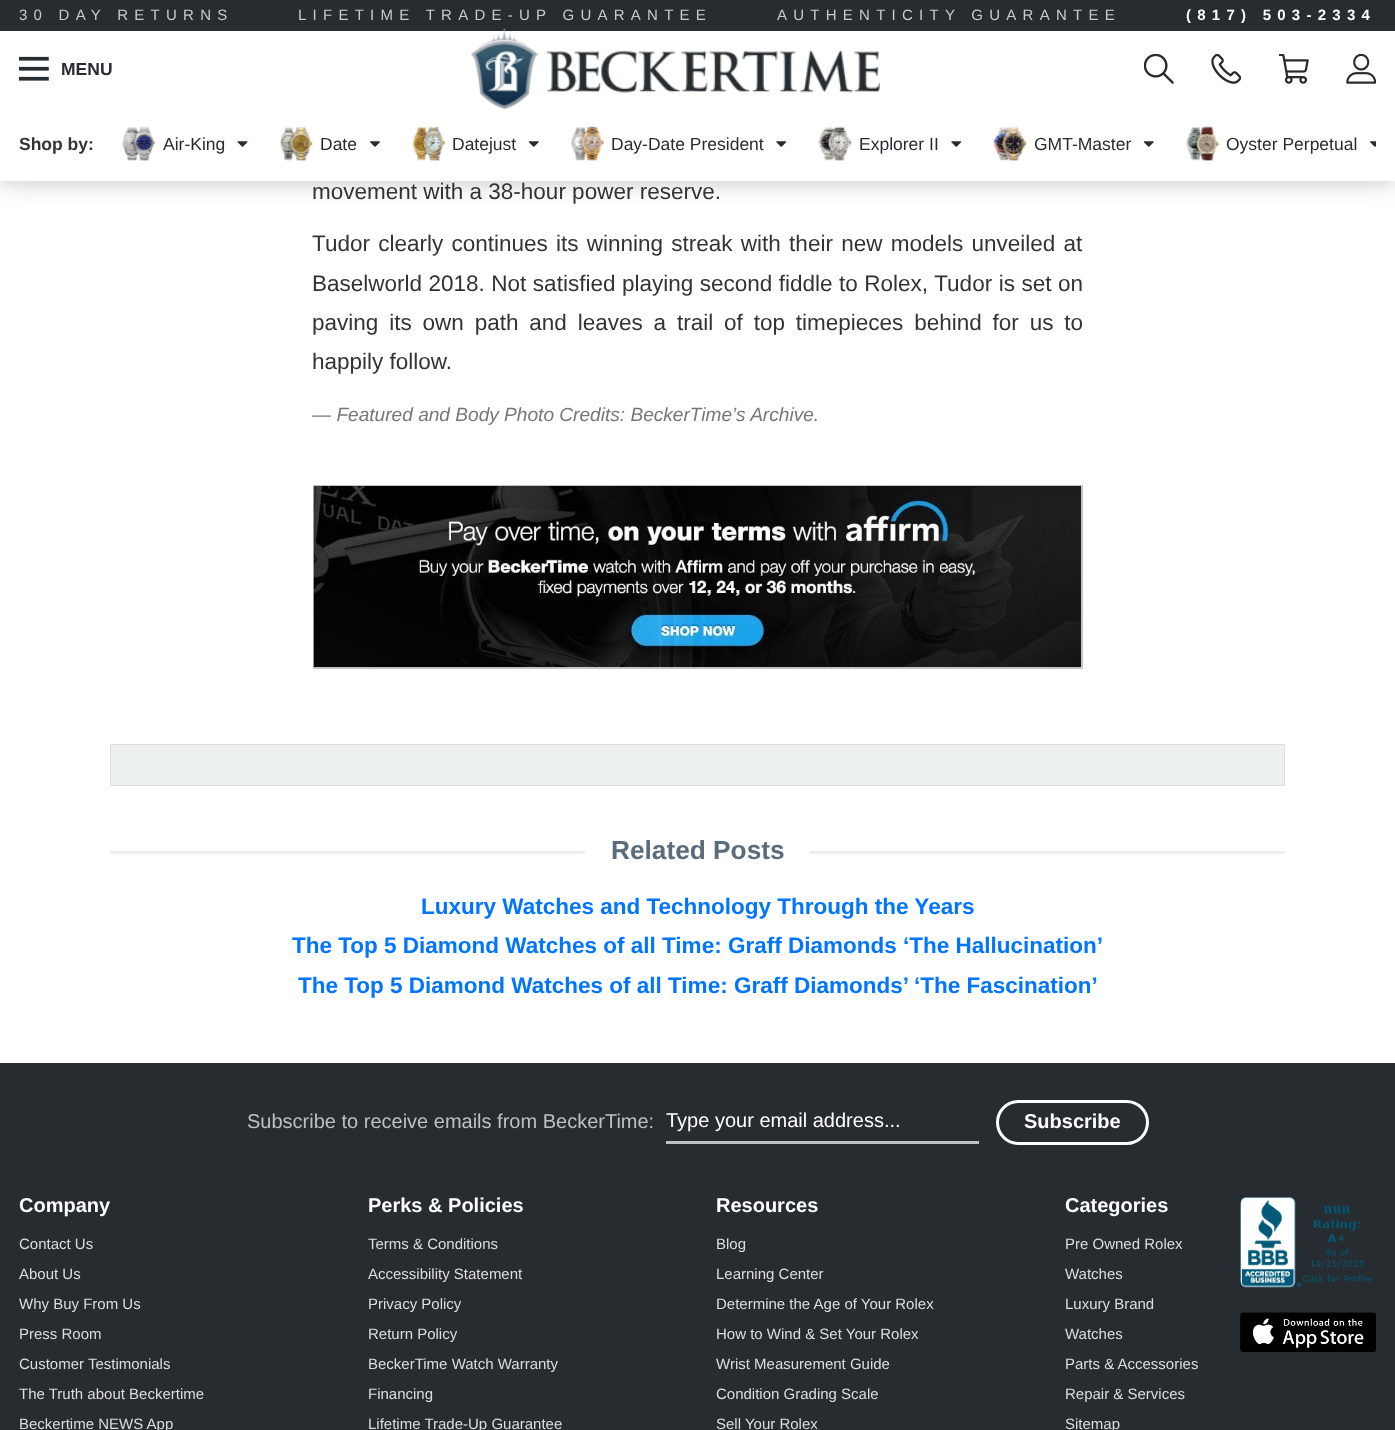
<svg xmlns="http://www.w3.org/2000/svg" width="1395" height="1430">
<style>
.a{font:15px Liberation Sans;letter-spacing:6.25px;fill:#c9cacb}
.b{font:bold 15px Liberation Sans;letter-spacing:6.25px;fill:#fff}
.c{font:bold 17.5px Liberation Sans;fill:#272c30}
.d{font:bold 17.5px Liberation Sans;fill:#333}
.e{font:17.5px Liberation Sans;fill:#272c30}
.f{font:22.5px Liberation Sans;fill:#333}
.g{font:italic 19.1px Liberation Sans;fill:#777}
.h{font:bold 26.25px Liberation Sans;fill:#586c7c}
.i{font:bold 22.5px Liberation Sans;fill:#0175ff}
.j{font:20px Liberation Sans;fill:#bec0c1}
.k{font:20px Liberation Sans;fill:#fff}
.l{font:bold 20px Liberation Sans;fill:#fff}
.m{font:15px Liberation Sans;fill:#ddd}
</style>
<rect width="100%" height="100%" fill="#fff"/>
<path fill="#272c30" d="M0 0h1395v31H0z"/>
<path fill="#00000040" filter="blur(12.5px)" d="M0 106h1395v75H0z"/>
<image href="1.png" x="19" y="56" width="30" height="25"/>
<path fill="#fff" d="M0 84h1395v97H0z"/>
<image href="2.png" x="471" y="28" width="409" height="81"/>
<image href="3.png" x="1144" y="54" width="30" height="30"/>
<image href="4.png" x="1211" y="54" width="30" height="30"/>
<image href="5.png" x="1279" y="54" width="30" height="30"/>
<image href="6.png" x="1346" y="54" width="30" height="30"/>
<image href="7.png" x="122" y="126" width="34" height="35"/>
<image href="8.png" x="237" y="141" width="11" height="6"/>
<image href="9.png" x="280" y="126" width="33" height="35"/>
<image href="10.png" x="370" y="141" width="10" height="6"/>
<image href="11.png" x="412" y="126" width="34" height="35"/>
<image href="12.png" x="528" y="141" width="11" height="6"/>
<image href="13.png" x="571" y="126" width="34" height="35"/>
<image href="14.png" x="776" y="141" width="11" height="6"/>
<image href="15.png" x="818" y="126" width="34" height="35"/>
<image href="14.png" x="951" y="141" width="11" height="6"/>
<image href="16.png" x="993" y="126" width="34" height="35"/>
<image href="12.png" x="1143" y="141" width="11" height="6"/>
<image href="17.png" x="1186" y="126" width="34" height="35"/>
<image href="18.png" x="1370" y="141" width="6" height="6"/>
<path fill="none" stroke="#bdc3c7" d="M313.5 485.5h769v183H313.5z"/>
<image href="19.png" x="313" y="486" width="769" height="182"/>
<path fill="#ecf0f1" stroke="#ddd" d="M110.5 744.5h1174v41H110.5z"/>
<path fill="#ecf0f1" d="M110 851h475v3H110z"/>
<path fill="#ecf0f1" d="M810 851h475v3H810z"/>
<path fill="#272c30" d="M0 1063h1395v367H0z"/>
<path fill="#24292c" d="M666 1101h313v1H666z"/>
<path fill="#bec0c1" d="M666 1141h313v3H666z"/>
<rect fill="none" stroke="#fff" stroke-width="3" x="997.5" y="1101.5" width="150" height="42" rx="21"/>
<image href="20.png" x="1240" y="1197" width="132" height="91"/>
<image href="21.png" x="1240" y="1312" width="136" height="40"/>
<text class="a" x="19" y="20">30 DAY RETURNS</text>
<text class="a" x="298" y="20">LIFETIME TRADE-UP GUARANTEE</text>
<text class="a" x="777" y="20">AUTHENTICITY GUARANTEE</text>
<text class="b" x="1186" y="20">(817) 503-2334</text>
<text class="c" x="61" y="75">MENU</text>
<text class="d" x="19" y="150">Shop by:</text>
<text class="e" x="163" y="150">Air-King</text>
<text class="e" x="320" y="150">Date</text>
<text class="e" x="452" y="150">Datejust</text>
<text class="e" x="611" y="150">Day-Date President</text>
<text class="e" x="859" y="150">Explorer II</text>
<text class="e" x="1034" y="150">GMT-Master</text>
<text class="e" x="1226" y="150">Oyster Perpetual</text>
<text class="f" x="312" y="199">movement with a 38-hour power reserve.</text>
<text class="f" x="312" y="251" word-spacing="2">Tudor clearly continues its winning streak with their new models unveiled at</text>
<text class="f" x="312" y="291" word-spacing="0.25">Baselworld 2018. Not satisfied playing second fiddle to Rolex, Tudor is set on</text>
<text class="f" x="312" y="330" word-spacing="4.6">paving its own path and leaves a trail of top timepieces behind for us to</text>
<text class="f" x="312" y="369">happily follow.</text>
<text class="g" x="312" y="421">— Featured and Body Photo Credits: BeckerTime’s Archive.</text>
<text class="h" x="611" y="859">Related Posts</text>
<text class="i" x="421" y="914">Luxury Watches and Technology Through the Years</text>
<text class="i" x="292" y="953">The Top 5 Diamond Watches of all Time: Graff Diamonds ‘The Hallucination’</text>
<text class="i" x="298" y="993">The Top 5 Diamond Watches of all Time: Graff Diamonds’ ‘The Fascination’</text>
<text class="j" x="247" y="1128">Subscribe to receive emails from BeckerTime:</text>
<text class="k" x="666" y="1127">Type your email address...</text>
<text class="l" x="1024" y="1128">Subscribe</text>
<text class="l" x="19" y="1212">Company</text>
<text class="m" x="19" y="1249">Contact Us</text>
<text class="m" x="19" y="1279">About Us</text>
<text class="m" x="19" y="1309">Why Buy From Us</text>
<text class="m" x="19" y="1339">Press Room</text>
<text class="m" x="19" y="1369">Customer Testimonials</text>
<text class="m" x="19" y="1399">The Truth about Beckertime</text>
<text class="m" x="19" y="1429">Beckertime NEWS App</text>
<text class="l" x="368" y="1212">Perks &amp; Policies</text>
<text class="m" x="368" y="1249">Terms &amp; Conditions</text>
<text class="m" x="368" y="1279">Accessibility Statement</text>
<text class="m" x="368" y="1309">Privacy Policy</text>
<text class="m" x="368" y="1339">Return Policy</text>
<text class="m" x="368" y="1369">BeckerTime Watch Warranty</text>
<text class="m" x="368" y="1399">Financing</text>
<text class="m" x="368" y="1429">Lifetime Trade-Up Guarantee</text>
<text class="l" x="716" y="1212">Resources</text>
<text class="m" x="716" y="1249">Blog</text>
<text class="m" x="716" y="1279">Learning Center</text>
<text class="m" x="716" y="1309">Determine the Age of Your Rolex</text>
<text class="m" x="716" y="1339">How to Wind &amp; Set Your Rolex</text>
<text class="m" x="716" y="1369">Wrist Measurement Guide</text>
<text class="m" x="716" y="1399">Condition Grading Scale</text>
<text class="m" x="716" y="1429">Sell Your Rolex</text>
<text class="l" x="1065" y="1212">Categories</text>
<text class="m" x="1065" y="1249">Pre Owned Rolex</text>
<text class="m" x="1065" y="1279">Watches</text>
<text class="m" x="1065" y="1309">Luxury Brand</text>
<text class="m" x="1065" y="1339">Watches</text>
<text class="m" x="1065" y="1369">Parts &amp; Accessories</text>
<text class="m" x="1065" y="1399">Repair &amp; Services</text>
<text class="m" x="1065" y="1429">Sitemap</text>
</svg>
